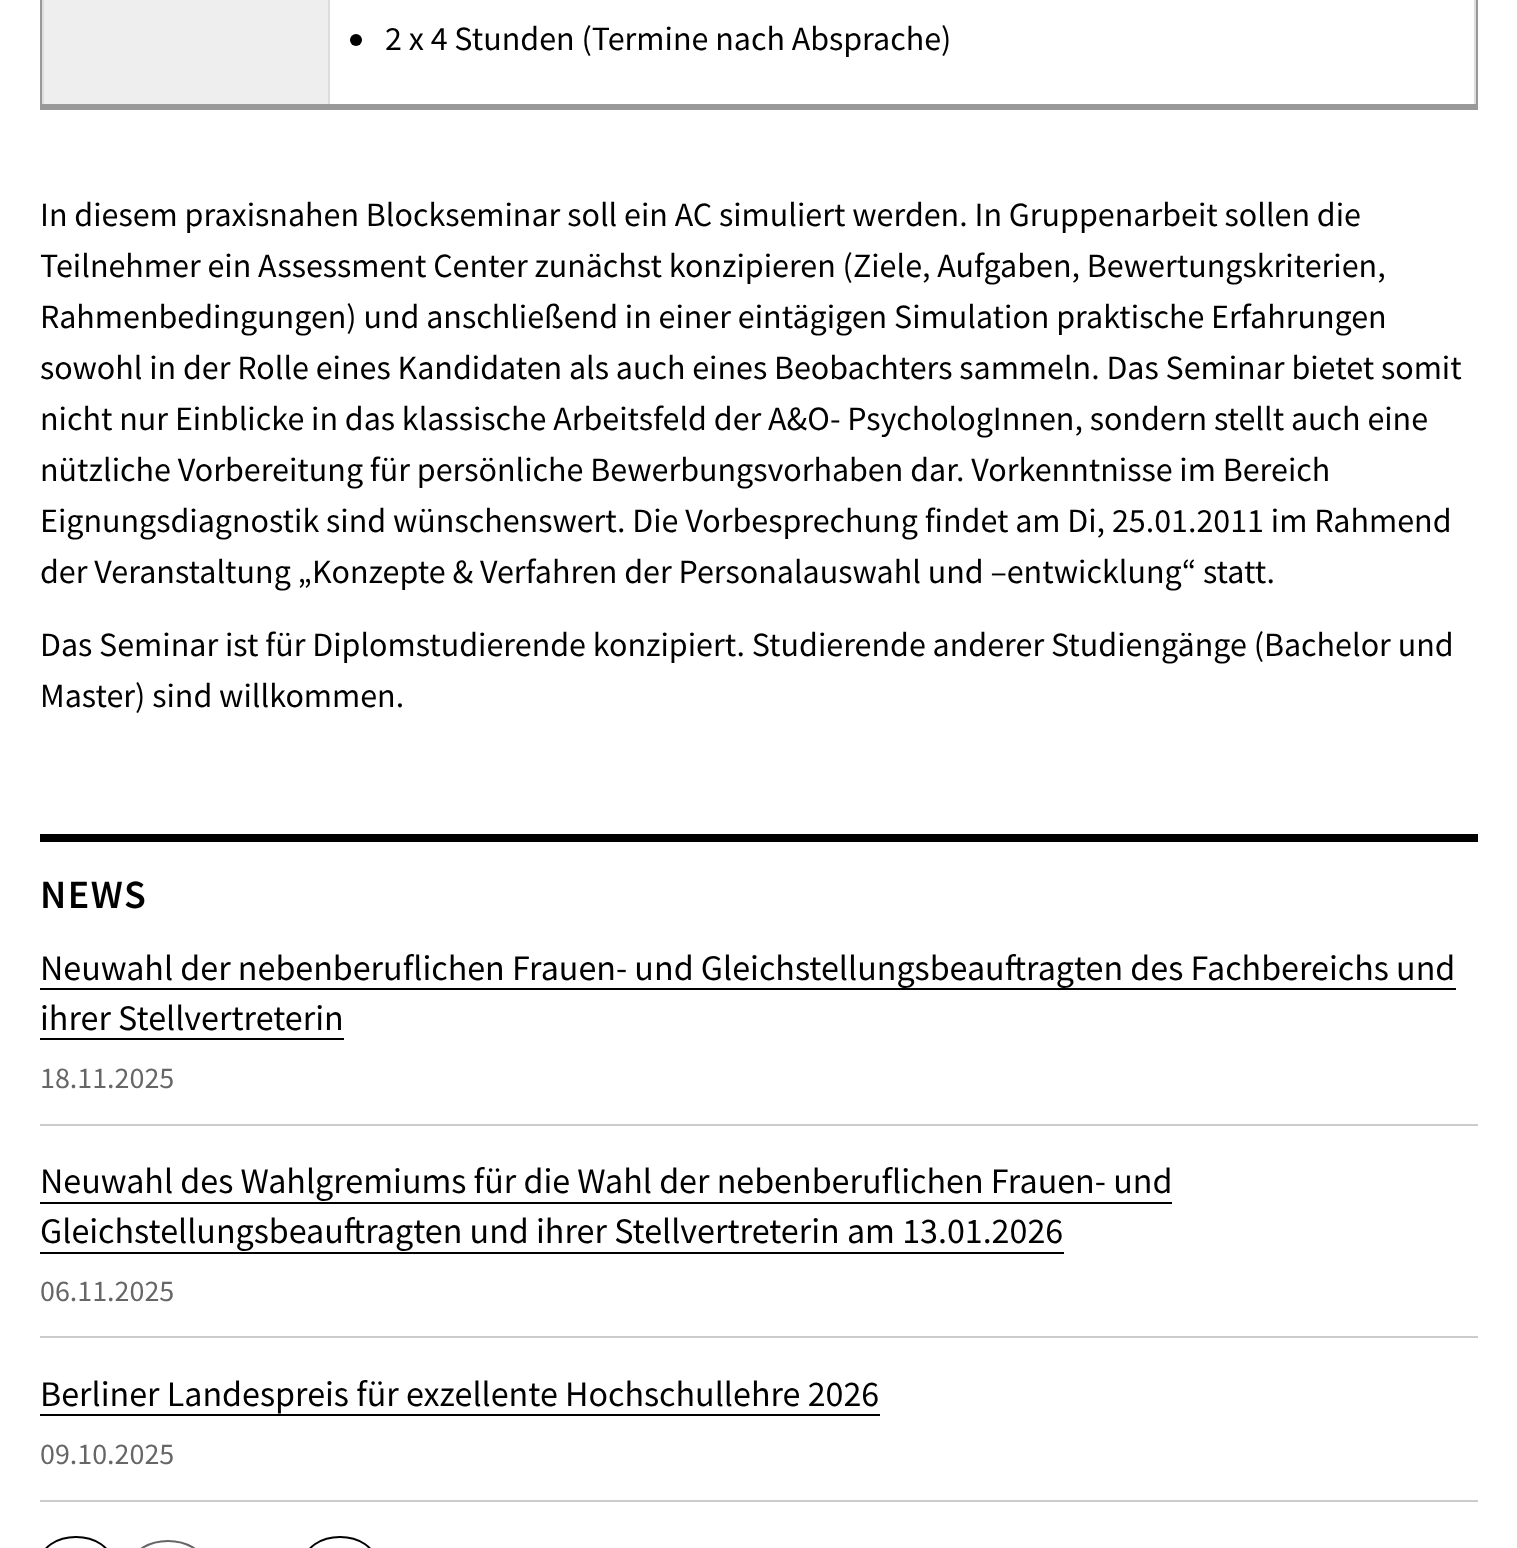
<svg xmlns="http://www.w3.org/2000/svg" width="1517" height="1548">
<style>
.a{font:34px Source Sans Pro;fill:#000}
.b{font:600 40px Source Sans Pro;letter-spacing:1.5px;fill:#000}
.c{font:36px Source Sans Pro;fill:#000}
.d{font:30px Source Sans Pro;fill:#666}
</style>
<rect width="100%" height="100%" fill="#fff"/>
<path fill="none" stroke="#999" stroke-width="2" d="M41 -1h1436v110H41z"/>
<path fill="#ddd" d="M42 0h2v106H42z"/>
<path fill="#ddd" d="M1474 0h2v106H1474z"/>
<path fill="#ddd" d="M328 0h2v106H328z"/>
<path fill="#999" d="M42 104h1434v4H42z"/>
<path fill="#eee" d="M44 0h284v104H44z"/>
<circle fill="#000" cx="356" cy="40" r="6"/>
<path fill="#000" d="M40 834h1438v8H40z"/>
<path fill="#ccc" d="M40 1124h1438v2H40z"/>
<path fill="#000" d="M40 988h1416v2H40z"/>
<path fill="#000" d="M40 1038h304v2H40z"/>
<path fill="#ccc" d="M40 1336h1438v2H40z"/>
<path fill="#000" d="M40 1202h1132v2H40z"/>
<path fill="#000" d="M40 1252h1024v2H40z"/>
<path fill="#ccc" d="M40 1500h1438v2H40z"/>
<path fill="#000" d="M40 1414h840v2H40z"/>
<rect fill="none" stroke="#000" stroke-width="2" x="41" y="1537" width="70" height="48" rx="35"/>
<rect fill="none" stroke="#666" stroke-width="2" x="133" y="1541" width="70" height="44" rx="35"/>
<rect fill="none" stroke="#000" stroke-width="2" x="305" y="1537" width="70" height="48" rx="35"/>
<text class="a" x="385" y="50">2 x 4 Stunden (Termine nach Absprache)</text>
<text class="a" x="40" y="226">In diesem praxisnahen Blockseminar soll ein AC simuliert werden. In Gruppenarbeit sollen die</text>
<text class="a" x="40" y="277">Teilnehmer ein Assessment Center zunächst konzipieren (Ziele, Aufgaben, Bewertungskriterien,</text>
<text class="a" x="40" y="328">Rahmenbedingungen) und anschließend in einer eintägigen Simulation praktische Erfahrungen</text>
<text class="a" x="40" y="379">sowohl in der Rolle eines Kandidaten als auch eines Beobachters sammeln. Das Seminar bietet somit</text>
<text class="a" x="40" y="430">nicht nur Einblicke in das klassische Arbeitsfeld der A&amp;O- PsychologInnen, sondern stellt auch eine</text>
<text class="a" x="40" y="481">nützliche Vorbereitung für persönliche Bewerbungsvorhaben dar. Vorkenntnisse im Bereich</text>
<text class="a" x="40" y="532">Eignungsdiagnostik sind wünschenswert. Die Vorbesprechung findet am Di, 25.01.2011 im Rahmend</text>
<text class="a" x="40" y="583">der Veranstaltung „Konzepte &amp; Verfahren der Personalauswahl und –entwicklung“ statt.</text>
<text class="a" x="40" y="656">Das Seminar ist für Diplomstudierende konzipiert. Studierende anderer Studiengänge (Bachelor und</text>
<text class="a" x="40" y="707">Master) sind willkommen.</text>
<text class="b" x="40" y="908">NEWS</text>
<text class="c" x="40" y="980">Neuwahl der nebenberuflichen Frauen- und Gleichstellungsbeauftragten des Fachbereichs und</text>
<text class="c" x="40" y="1030">ihrer Stellvertreterin</text>
<text class="d" x="40" y="1088">18.11.2025</text>
<text class="c" x="40" y="1193">Neuwahl des Wahlgremiums für die Wahl der nebenberuflichen Frauen- und</text>
<text class="c" x="40" y="1243">Gleichstellungsbeauftragten und ihrer Stellvertreterin am 13.01.2026</text>
<text class="d" x="40" y="1301">06.11.2025</text>
<text class="c" x="40" y="1406">Berliner Landespreis für exzellente Hochschullehre 2026</text>
<text class="d" x="40" y="1464">09.10.2025</text>
</svg>
